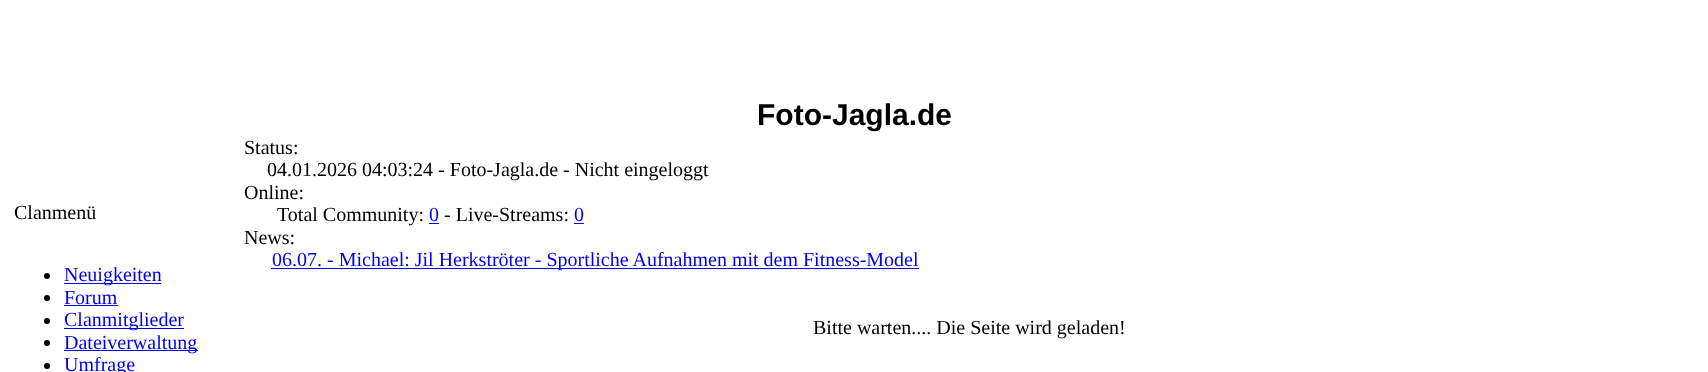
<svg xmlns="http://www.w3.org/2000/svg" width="1708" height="372">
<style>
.a{font:bold 30px Liberation Sans;fill:#000}
.b{font:20px Liberation Serif;fill:#000}
.c{font:20px Liberation Serif;fill:#00e}
</style>
<rect width="100%" height="100%" fill="#fff"/>
<circle fill="#000" cx="47" cy="276" r="3"/>
<path fill="#00e" d="M64 283h97v1H64z"/>
<circle fill="#000" cx="47" cy="298" r="3"/>
<path fill="#00e" d="M64 305h54v1H64z"/>
<circle fill="#000" cx="47" cy="321" r="3"/>
<path fill="#00e" d="M64 328h120v1H64z"/>
<circle fill="#000" cx="47" cy="343" r="3"/>
<path fill="#00e" d="M64 350h134v1H64z"/>
<circle fill="#000" cx="47" cy="366" r="3"/>
<path fill="#00e" d="M429 223h10v1H429z"/>
<path fill="#00e" d="M574 223h10v1H574z"/>
<path fill="#00e" d="M271 268h648v1H271z"/>
<text class="a" x="757" y="125">Foto-Jagla.de</text>
<text class="b" x="14" y="219">Clanmenü</text>
<text class="c" x="64" y="281">Neuigkeiten</text>
<text class="c" x="64" y="304">Forum</text>
<text class="c" x="64" y="326">Clanmitglieder</text>
<text class="c" x="64" y="349">Dateiverwaltung</text>
<text class="c" x="64" y="371">Umfrage</text>
<text class="b" x="244" y="154">Status:</text>
<text class="b" x="267" y="176">04.01.2026 04:03:24 - Foto-Jagla.de - Nicht eingeloggt</text>
<text class="b" x="244" y="199">Online:</text>
<text class="b" x="277" y="221">Total Community:</text>
<text class="c" x="429" y="221">0</text>
<text class="b" x="444" y="221">- Live-Streams:</text>
<text class="c" x="574" y="221">0</text>
<text class="b" x="244" y="244">News:</text>
<text class="c" x="272" y="266">06.07. - Michael: Jil Herkströter - Sportliche Aufnahmen mit dem Fitness-Model</text>
<text class="b" x="813" y="334">Bitte warten.... Die Seite wird geladen!</text>
</svg>
